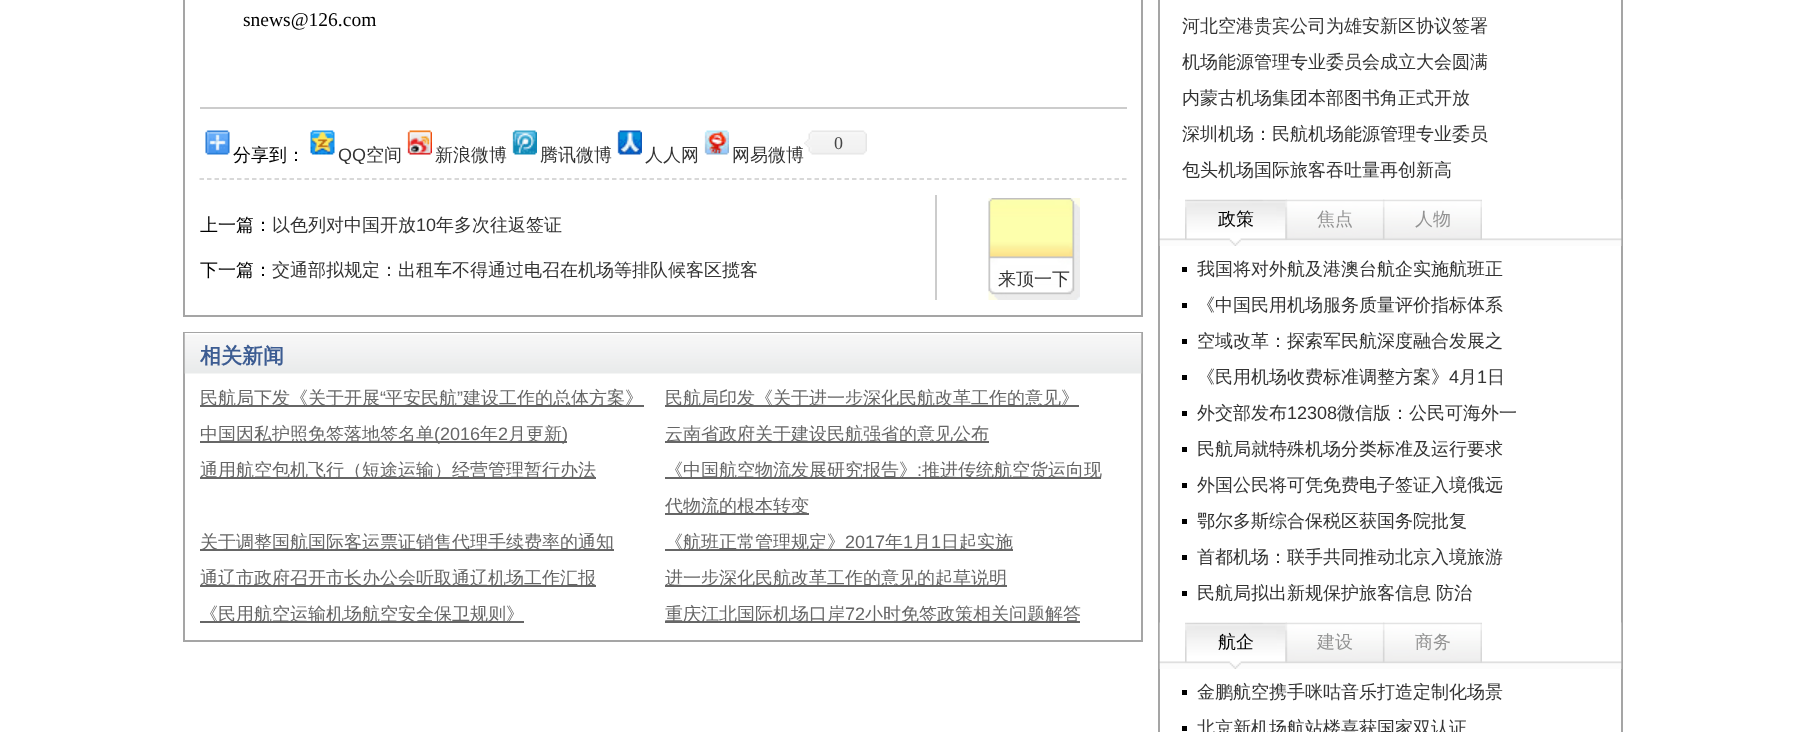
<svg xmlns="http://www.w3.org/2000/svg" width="1805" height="732">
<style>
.a{font:19.5px Liberation Serif;fill:#000}
.b{font:18px Liberation Serif;fill:#454545}
.c{font:500 18px WenQuanYi Zen Hei;fill:#000}
.d{font:18px Liberation Sans;fill:#333}
.e{font:500 18px WenQuanYi Zen Hei;fill:#333}
.f{font:bold 21px WenQuanYi Zen Hei;fill:#3c5c92}
.g{font:500 18px WenQuanYi Zen Hei;fill:#666}
.h{font:18px Liberation Sans;fill:#666}
.i{font:500 18px WenQuanYi Zen Hei;fill:#939393}
</style>
<defs>
<clipPath id="clip1"><path d="M200 123h667v41H200z"/></clipPath>
</defs>
<rect width="100%" height="100%" fill="#fff"/>
<path fill="none" stroke="#a5a5a5" stroke-width="2" d="M184 -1h958v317H184z"/>
<path fill="#ccc" d="M200 107h927v2H200z"/>
<path fill="none" stroke="#ccc" stroke-width="1.5" stroke-dasharray="4.5 3" d="M199.5 179h927"/>
<image href="1.png" x="804" y="130" width="63" height="25"/>
<image href="2.png" x="205" y="130" width="25" height="25"/>
<image href="3.png" x="310" y="130" width="25" height="25"/>
<image href="4.png" x="407" y="130" width="25" height="25"/>
<image href="5.png" x="512" y="130" width="25" height="25"/>
<image href="6.png" x="617" y="130" width="25" height="25"/>
<image href="7.png" x="704" y="130" width="25" height="25"/>
<path fill="#ccc" d="M935 195h2v105H935z"/>
<image href="8.png" x="988" y="198" width="92" height="102"/>
<path fill="none" stroke="#a5a5a5" stroke-width="2" d="M184 333h958v308H184z"/>
<image href="9.png" x="184" y="333" width="958" height="41"/>
<path fill="#666" d="M200 405h444v2H200z"/>
<path fill="#666" d="M665 405h414v2H665z"/>
<path fill="#666" d="M200 441h367v2H200z"/>
<path fill="#666" d="M665 441h324v2H665z"/>
<path fill="#666" d="M200 477h396v2H200z"/>
<path fill="#666" d="M665 477h436v2H665z"/>
<path fill="#666" d="M665 513h144v2H665z"/>
<path fill="#666" d="M200 549h414v2H200z"/>
<path fill="#666" d="M665 549h348v2H665z"/>
<path fill="#666" d="M200 585h396v2H200z"/>
<path fill="#666" d="M665 585h342v2H665z"/>
<path fill="#666" d="M200 621h324v2H200z"/>
<path fill="#666" d="M665 621h415v2H665z"/>
<path fill="none" stroke="#a5a5a5" stroke-width="2" d="M1159 -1h463v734H1159z"/>
<image href="10.png" x="1159" y="199" width="463" height="47"/>
<image href="11.png" x="1185" y="199" width="102" height="47"/>
<image href="12.png" x="1285" y="199" width="100" height="41"/>
<image href="13.png" x="1383" y="199" width="99" height="41"/>
<path fill="#000" d="M1182 267h5v5H1182z"/>
<path fill="#000" d="M1182 303h5v5H1182z"/>
<path fill="#000" d="M1182 339h5v5H1182z"/>
<path fill="#000" d="M1182 375h5v5H1182z"/>
<path fill="#000" d="M1182 411h5v5H1182z"/>
<path fill="#000" d="M1182 447h5v5H1182z"/>
<path fill="#000" d="M1182 483h5v5H1182z"/>
<path fill="#000" d="M1182 519h5v5H1182z"/>
<path fill="#000" d="M1182 555h5v5H1182z"/>
<path fill="#000" d="M1182 591h5v5H1182z"/>
<image href="10.png" x="1159" y="622" width="463" height="47"/>
<image href="11.png" x="1185" y="622" width="102" height="47"/>
<image href="12.png" x="1285" y="622" width="100" height="41"/>
<image href="13.png" x="1383" y="622" width="99" height="41"/>
<path fill="#000" d="M1182 690h5v5H1182z"/>
<path fill="#000" d="M1182 726h5v5H1182z"/>
<text class="a" x="243" y="26">snews@126.com</text>
<text class="b" x="834" y="149">0</text>
<text class="c" x="233" y="161">分享到：</text>
<g clip-path="url(#clip1)">
<text class="d" x="338" y="161">QQ</text>
</g>
<text class="e" x="366" y="161">空间</text>
<text class="e" x="435" y="161">新浪微博</text>
<text class="e" x="540" y="161">腾讯微博</text>
<text class="e" x="645" y="161">人人网</text>
<text class="e" x="732" y="161">网易微博</text>
<text class="c" x="200" y="231">上一篇：</text>
<text class="e" x="272" y="231">以色列对中国开放</text>
<text class="d" x="416" y="231">10</text>
<text class="e" x="436" y="231">年多次往返签证</text>
<text class="c" x="200" y="276">下一篇：</text>
<text class="e" x="272" y="276">交通部拟规定：出租车不得通过电召在机场等排队候客区揽客</text>
<text class="e" x="998" y="285">来顶一下</text>
<text class="f" x="200" y="363">相关新闻</text>
<text class="g" x="200" y="404">民航局下发《关于开展</text>
<text class="h" x="380" y="404">“</text>
<text class="g" x="385" y="404">平安民航</text>
<text class="h" x="457" y="404">”</text>
<text class="g" x="463" y="404">建设工作的总体方案》</text>
<text class="g" x="665" y="404">民航局印发《关于进一步深化民航改革工作的意见》</text>
<text class="g" x="200" y="440">中国因私护照免签落地签名单</text>
<text class="h" x="434" y="440">(2016</text>
<text class="g" x="480" y="440">年</text>
<text class="h" x="498" y="440">2</text>
<text class="g" x="508" y="440">月更新</text>
<text class="h" x="562" y="440">)</text>
<text class="g" x="665" y="440">云南省政府关于建设民航强省的意见公布</text>
<text class="g" x="200" y="476">通用航空包机飞行（短途运输）经营管理暂行办法</text>
<text class="g" x="665" y="476">《中国航空物流发展研究报告》</text>
<text class="h" x="917" y="476">:</text>
<text class="g" x="922" y="476">推进传统航空货运向现</text>
<text class="g" x="665" y="512">代物流的根本转变</text>
<text class="g" x="200" y="548">关于调整国航国际客运票证销售代理手续费率的通知</text>
<text class="g" x="665" y="548">《航班正常管理规定》</text>
<text class="h" x="845" y="548">2017</text>
<text class="g" x="885" y="548">年</text>
<text class="h" x="903" y="548">1</text>
<text class="g" x="913" y="548">月</text>
<text class="h" x="931" y="548">1</text>
<text class="g" x="941" y="548">日起实施</text>
<text class="g" x="200" y="584">通辽市政府召开市长办公会听取通辽机场工作汇报</text>
<text class="g" x="665" y="584">进一步深化民航改革工作的意见的起草说明</text>
<text class="g" x="200" y="620">《民用航空运输机场航空安全保卫规则》</text>
<text class="g" x="665" y="620">重庆江北国际机场口岸</text>
<text class="h" x="845" y="620">72</text>
<text class="g" x="865" y="620">小时免签政策相关问题解答</text>
<text class="e" x="1182" y="32">河北空港贵宾公司为雄安新区协议签署</text>
<text class="e" x="1182" y="68">机场能源管理专业委员会成立大会圆满</text>
<text class="e" x="1182" y="104">内蒙古机场集团本部图书角正式开放</text>
<text class="e" x="1182" y="140">深圳机场：民航机场能源管理专业委员</text>
<text class="e" x="1182" y="176">包头机场国际旅客吞吐量再创新高</text>
<text class="c" x="1218" y="225">政策</text>
<text class="i" x="1317" y="225">焦点</text>
<text class="i" x="1415" y="225">人物</text>
<text class="e" x="1197" y="275">我国将对外航及港澳台航企实施航班正</text>
<text class="e" x="1197" y="311">《中国民用机场服务质量评价指标体系</text>
<text class="e" x="1197" y="347">空域改革：探索军民航深度融合发展之</text>
<text class="e" x="1197" y="383">《民用机场收费标准调整方案》</text>
<text class="d" x="1449" y="383">4</text>
<text class="e" x="1459" y="383">月</text>
<text class="d" x="1477" y="383">1</text>
<text class="e" x="1487" y="383">日</text>
<text class="e" x="1197" y="419">外交部发布</text>
<text class="d" x="1287" y="419">12308</text>
<text class="e" x="1337" y="419">微信版：公民可海外一</text>
<text class="e" x="1197" y="455">民航局就特殊机场分类标准及运行要求</text>
<text class="e" x="1197" y="491">外国公民将可凭免费电子签证入境俄远</text>
<text class="e" x="1197" y="527">鄂尔多斯综合保税区获国务院批复</text>
<text class="e" x="1197" y="563">首都机场：联手共同推动北京入境旅游</text>
<text class="e" x="1197" y="599">民航局拟出新规保护旅客信息</text>
<text class="e" x="1436" y="599">防治</text>
<text class="c" x="1218" y="648">航企</text>
<text class="i" x="1317" y="648">建设</text>
<text class="i" x="1415" y="648">商务</text>
<text class="e" x="1197" y="698">金鹏航空携手咪咕音乐打造定制化场景</text>
<text class="e" x="1197" y="734">北京新机场航站楼喜获国家双认证</text>
</svg>
